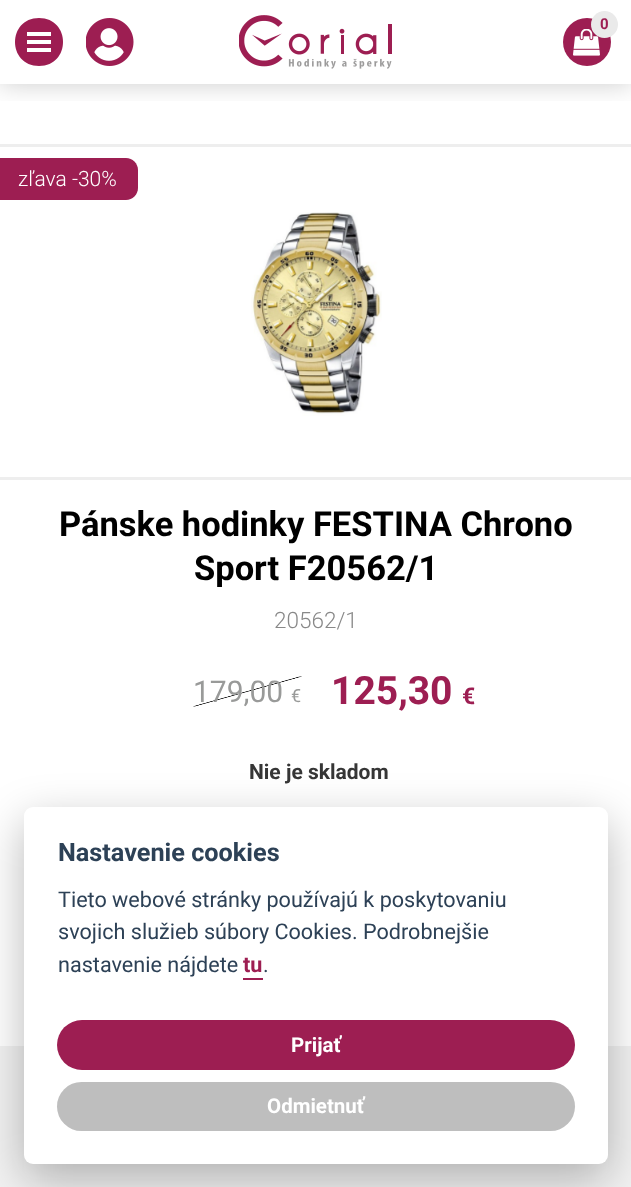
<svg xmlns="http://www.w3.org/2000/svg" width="631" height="1187">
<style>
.a{font:bold 15px Roboto;fill:#9d1e52}
.b{font:300 21px Roboto;fill:#fff}
.c{font:bold 34.5px Roboto;fill:#000}
.d{font:300 22.5px Roboto;fill:#888}
.e{font:30px Roboto;fill:#999a99}
.f{font:18px Roboto;fill:#999a99}
.g{font:bold 39px Roboto;fill:#9d1e52}
.h{font:bold 23px Roboto;fill:#9d1e52}
.i{font:bold 21px Roboto;fill:#363636}
.j{font:bold 25.25px Roboto;fill:#2d4156}
.k{font:21.6px Roboto;fill:#2d4156}
.l{font:bold 21.6px Roboto;fill:#9d1e52}
.m{font:bold 20.5px Roboto;fill:#fff}
</style>
<defs>
<clipPath id="clip1"><path d="M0 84h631v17H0z"/></clipPath>
</defs>
<rect width="100%" height="100%" fill="#fff"/>
<g clip-path="url(#clip1)">
<path fill="#00000033" filter="blur(13px)" d="M0 0h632v84H0z"/>
</g>
<path fill="#9d1d52" d="M39 18c-32 0-32 48 0 48c32 0 32-48 0-48zm12 34h-24v-4h24zm0-8h-24v-4h24zm0-8h-24v-4h24z"/>
<image href="1.png" x="86" y="18" width="48" height="48"/>
<image href="2.png" x="239" y="15" width="153" height="54"/>
<circle fill="#9d1e52" cx="587" cy="42" r="24"/>
<image href="3.png" x="573" y="29" width="27" height="27"/>
<circle fill="#eaeaea" cx="604.5" cy="24.5" r="13.5"/>
<path fill="#eee" d="M0 144h631v3H0z"/>
<path fill="#eee" d="M0 477h631v3H0z"/>
<image href="4.png" x="251" y="212" width="131" height="204"/>
<path fill="#9d1e52" d="M0 158h126c6.5 0 12 5.5 12 12v18c0 6.5-5.5 12-12 12h-126z"/>
<image href="5.png" x="193" y="676" width="109" height="31"/>
<path fill="#f2f2f2" d="M0 1046h631v141H0z"/>
<rect fill="#02020347" filter="blur(22.5px)" x="24" y="822" width="584" height="357" rx="9"/>
<rect fill="#fff" x="24" y="807" width="584" height="357" rx="9"/>
<path fill="#9d1e52" d="M243 978h20v2H243z"/>
<rect fill="#9d1e52" x="57" y="1020" width="518" height="50" rx="25"/>
<rect fill="#bebebe" x="57" y="1082" width="518" height="49" rx="24.5"/>
<text class="a" x="600" y="29">0</text>
<text class="b" x="18" y="186">zľava -30%</text>
<text class="c" x="59" y="536">Pánske hodinky FESTINA Chrono</text>
<text class="c" x="194" y="580">Sport F20562/1</text>
<text class="d" x="274" y="628">20562/1</text>
<text class="e" x="193" y="702">179,00</text>
<text class="f" x="291" y="702">€</text>
<text class="g" x="331" y="704">125,30</text>
<text class="h" x="462" y="704">€</text>
<text class="i" x="249" y="779">Nie je skladom</text>
<text class="j" x="58" y="861">Nastavenie cookies</text>
<text class="k" x="58" y="907">Tieto webové stránky používajú k poskytovaniu</text>
<text class="k" x="58" y="939">svojich služieb súbory Cookies. Podrobnejšie</text>
<text class="k" x="58" y="972">nastavenie nájdete</text>
<text class="l" x="243" y="972">tu</text>
<text class="k" x="263" y="972">.</text>
<text class="m" x="291" y="1052">Prijať</text>
<text class="m" x="267" y="1113">Odmietnuť</text>
</svg>
